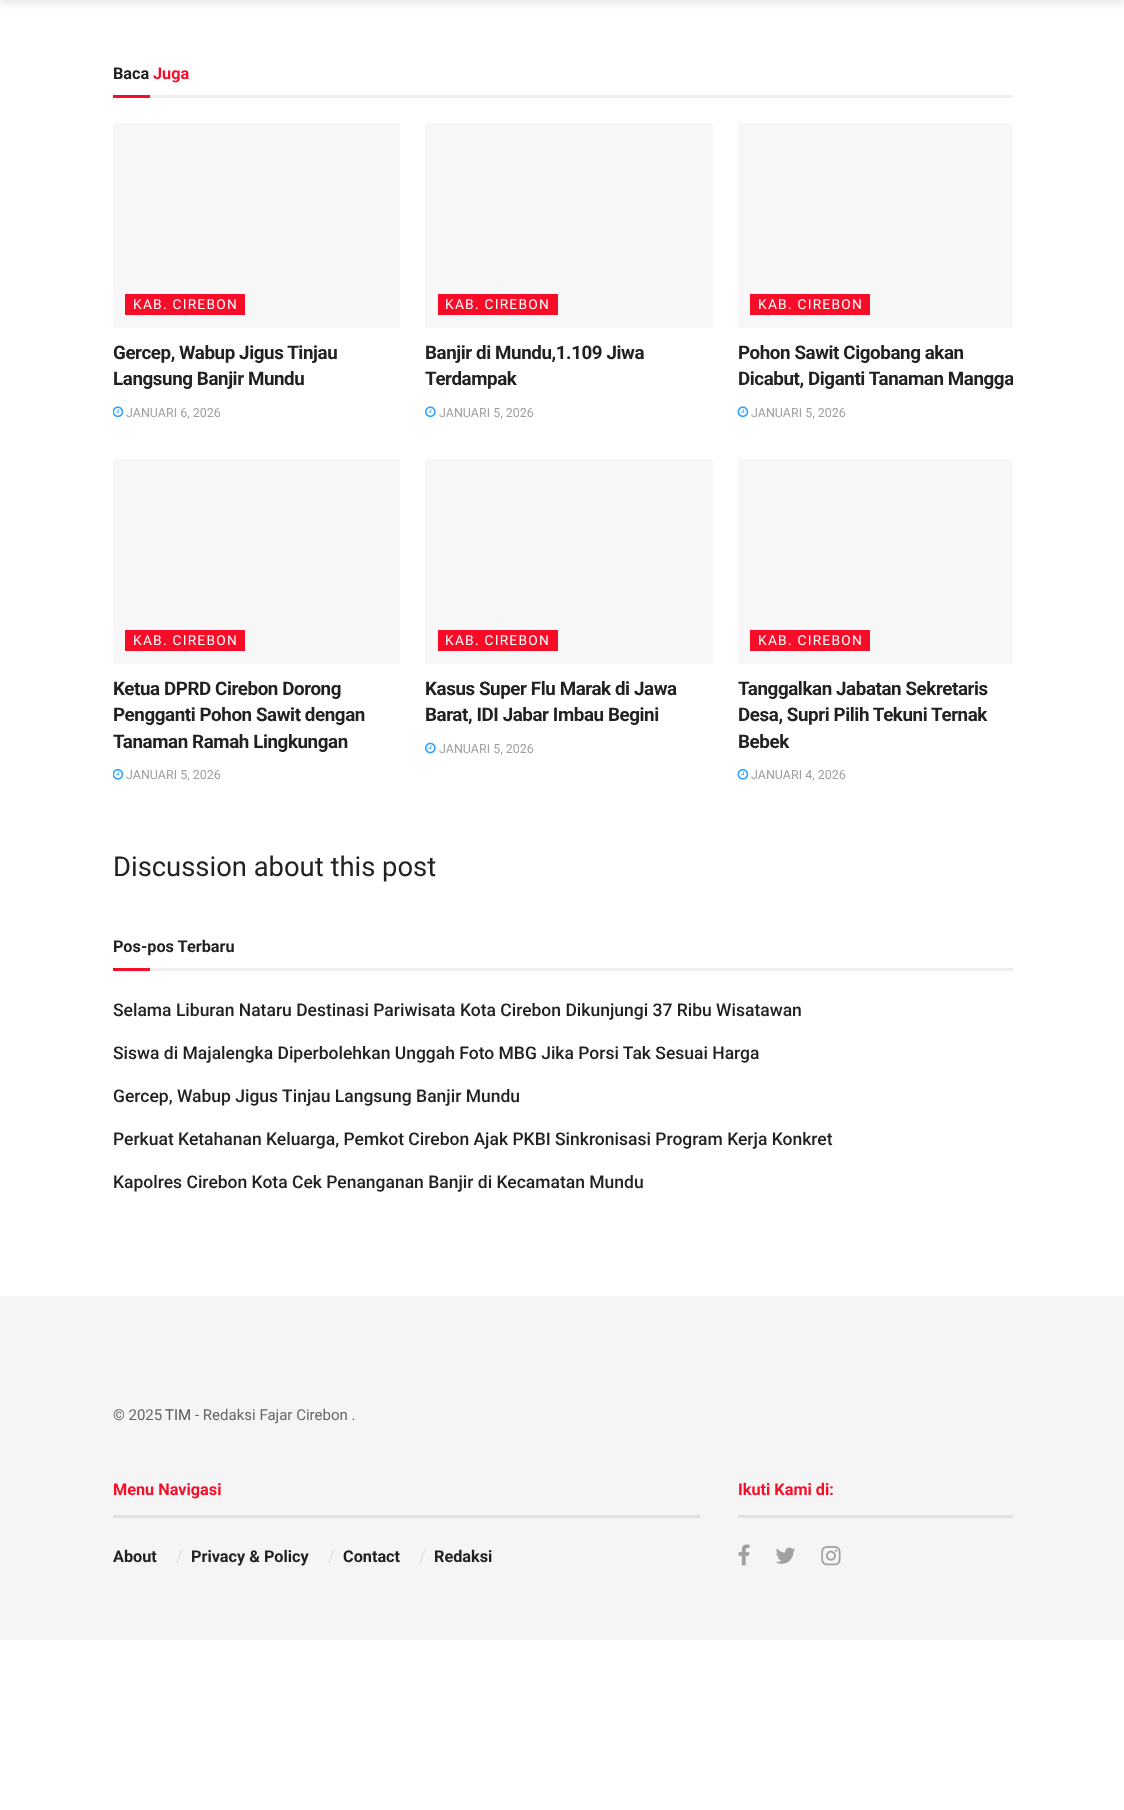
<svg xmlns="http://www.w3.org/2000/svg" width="1124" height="1810">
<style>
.a{font:bold 16.25px Roboto;fill:#212121}
.b{font:bold 16.25px Roboto;fill:#f70d28}
.c{font:13.75px Roboto;letter-spacing:1.25px;fill:#fff}
.d{font:bold 18.75px Roboto;letter-spacing:-0.4px;fill:#212121}
.e{font:12.5px Roboto;fill:#a0a0a0}
.f{font:27.4px Roboto;fill:#212121}
.g{font:500 17.5px Roboto;fill:#212121}
.h{font:15px Roboto;fill:#666}
.i{font:15px Roboto;fill:#53585c}
.j{font:17.5px Roboto;fill:#e0e0e0}
</style>
<defs>
<clipPath id="clip1"><path d="M113 123h900v698H113z"/></clipPath>
</defs>
<rect width="100%" height="100%" fill="#fff"/>
<path fill="#0000001a" filter="blur(4px)" d="M0 -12h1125v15H0z"/>
<path fill="#eee" d="M150 95h863v3H150z"/>
<path fill="#f70d28" d="M113 95h37v3H113z"/>
<path fill="#f7f7f7" d="M113 123h287v205H113z"/>
<path fill="#f70d28" d="M125 294h120v21H125z"/>
<image href="1.png" x="113" y="406" width="11" height="12"/>
<path fill="#f7f7f7" d="M425 123h288v205H425z"/>
<path fill="#f70d28" d="M438 294h120v21H438z"/>
<image href="2.png" x="425" y="406" width="11" height="12"/>
<path fill="#f7f7f7" d="M738 123h275v205H738z"/>
<path fill="#f70d28" d="M750 294h120v21H750z"/>
<image href="3.png" x="737" y="406" width="12" height="12"/>
<path fill="#f7f7f7" d="M113 459h287v205H113z"/>
<path fill="#f70d28" d="M125 630h120v21H125z"/>
<image href="4.png" x="113" y="768" width="11" height="12"/>
<path fill="#f7f7f7" d="M425 459h288v205H425z"/>
<path fill="#f70d28" d="M438 630h120v21H438z"/>
<image href="5.png" x="425" y="742" width="11" height="12"/>
<path fill="#f7f7f7" d="M738 459h275v205H738z"/>
<path fill="#f70d28" d="M750 630h120v21H750z"/>
<image href="6.png" x="737" y="768" width="12" height="12"/>
<path fill="#eee" d="M150 968h863v3H150z"/>
<path fill="#f70d28" d="M113 968h37v3H113z"/>
<path fill="#f5f5f5" d="M0 1296h1124v344H0z"/>
<path fill="#e0e0e0" d="M113 1515h587v3H113z"/>
<path fill="#e0e0e0" d="M738 1515h275v3H738z"/>
<image href="7.png" x="738" y="1544" width="12" height="22"/>
<image href="8.png" x="776" y="1547" width="20" height="17"/>
<image href="9.png" x="821" y="1546" width="20" height="20"/>
<text class="a" x="113" y="79">Baca</text>
<text class="b" x="153" y="79">Juga</text>
<text class="c" x="133" y="309">KAB. CIREBON</text>
<text class="d" x="113" y="359">Gercep, Wabup Jigus Tinjau</text>
<text class="d" x="113" y="385">Langsung Banjir Mundu</text>
<text class="e" x="126" y="417">JANUARI 6, 2026</text>
<text class="c" x="445" y="309">KAB. CIREBON</text>
<text class="d" x="425" y="359">Banjir di Mundu,1.109 Jiwa</text>
<text class="d" x="425" y="385">Terdampak</text>
<text class="e" x="439" y="417">JANUARI 5, 2026</text>
<text class="c" x="758" y="309">KAB. CIREBON</text>
<text class="d" x="738" y="359">Pohon Sawit Cigobang akan</text>
<g clip-path="url(#clip1)">
<text class="d" x="738" y="385">Dicabut, Diganti Tanaman Mangga</text>
</g>
<text class="e" x="751" y="417">JANUARI 5, 2026</text>
<text class="c" x="133" y="645">KAB. CIREBON</text>
<text class="d" x="113" y="695">Ketua DPRD Cirebon Dorong</text>
<text class="d" x="113" y="721">Pengganti Pohon Sawit dengan</text>
<text class="d" x="113" y="748">Tanaman Ramah Lingkungan</text>
<text class="e" x="126" y="779">JANUARI 5, 2026</text>
<text class="c" x="445" y="645">KAB. CIREBON</text>
<text class="d" x="425" y="695">Kasus Super Flu Marak di Jawa</text>
<text class="d" x="425" y="721">Barat, IDI Jabar Imbau Begini</text>
<text class="e" x="439" y="753">JANUARI 5, 2026</text>
<text class="c" x="758" y="645">KAB. CIREBON</text>
<text class="d" x="738" y="695">Tanggalkan Jabatan Sekretaris</text>
<text class="d" x="738" y="721">Desa, Supri Pilih Tekuni Ternak</text>
<text class="d" x="738" y="748">Bebek</text>
<text class="e" x="751" y="779">JANUARI 4, 2026</text>
<text class="f" x="113" y="876">Discussion about this post</text>
<text class="a" x="113" y="952">Pos-pos Terbaru</text>
<text class="g" x="113" y="1016">Selama Liburan Nataru Destinasi Pariwisata Kota Cirebon Dikunjungi 37 Ribu Wisatawan</text>
<text class="g" x="113" y="1059">Siswa di Majalengka Diperbolehkan Unggah Foto MBG Jika Porsi Tak Sesuai Harga</text>
<text class="g" x="113" y="1102">Gercep, Wabup Jigus Tinjau Langsung Banjir Mundu</text>
<text class="g" x="113" y="1145">Perkuat Ketahanan Keluarga, Pemkot Cirebon Ajak PKBI Sinkronisasi Program Kerja Konkret</text>
<text class="g" x="113" y="1188">Kapolres Cirebon Kota Cek Penanganan Banjir di Kecamatan Mundu</text>
<text class="h" x="113" y="1420">© 2025</text>
<text class="i" x="165" y="1420">TIM</text>
<text class="h" x="195" y="1420">- Redaksi Fajar Cirebon .</text>
<text class="b" x="113" y="1495">Menu Navigasi</text>
<text class="a" x="113" y="1562">About</text>
<text class="j" x="176" y="1562">/</text>
<text class="a" x="191" y="1562">Privacy &amp; Policy</text>
<text class="j" x="328" y="1562">/</text>
<text class="a" x="343" y="1562">Contact</text>
<text class="j" x="419" y="1562">/</text>
<text class="a" x="434" y="1562">Redaksi</text>
<text class="b" x="738" y="1495">Ikuti Kami di:</text>
</svg>
